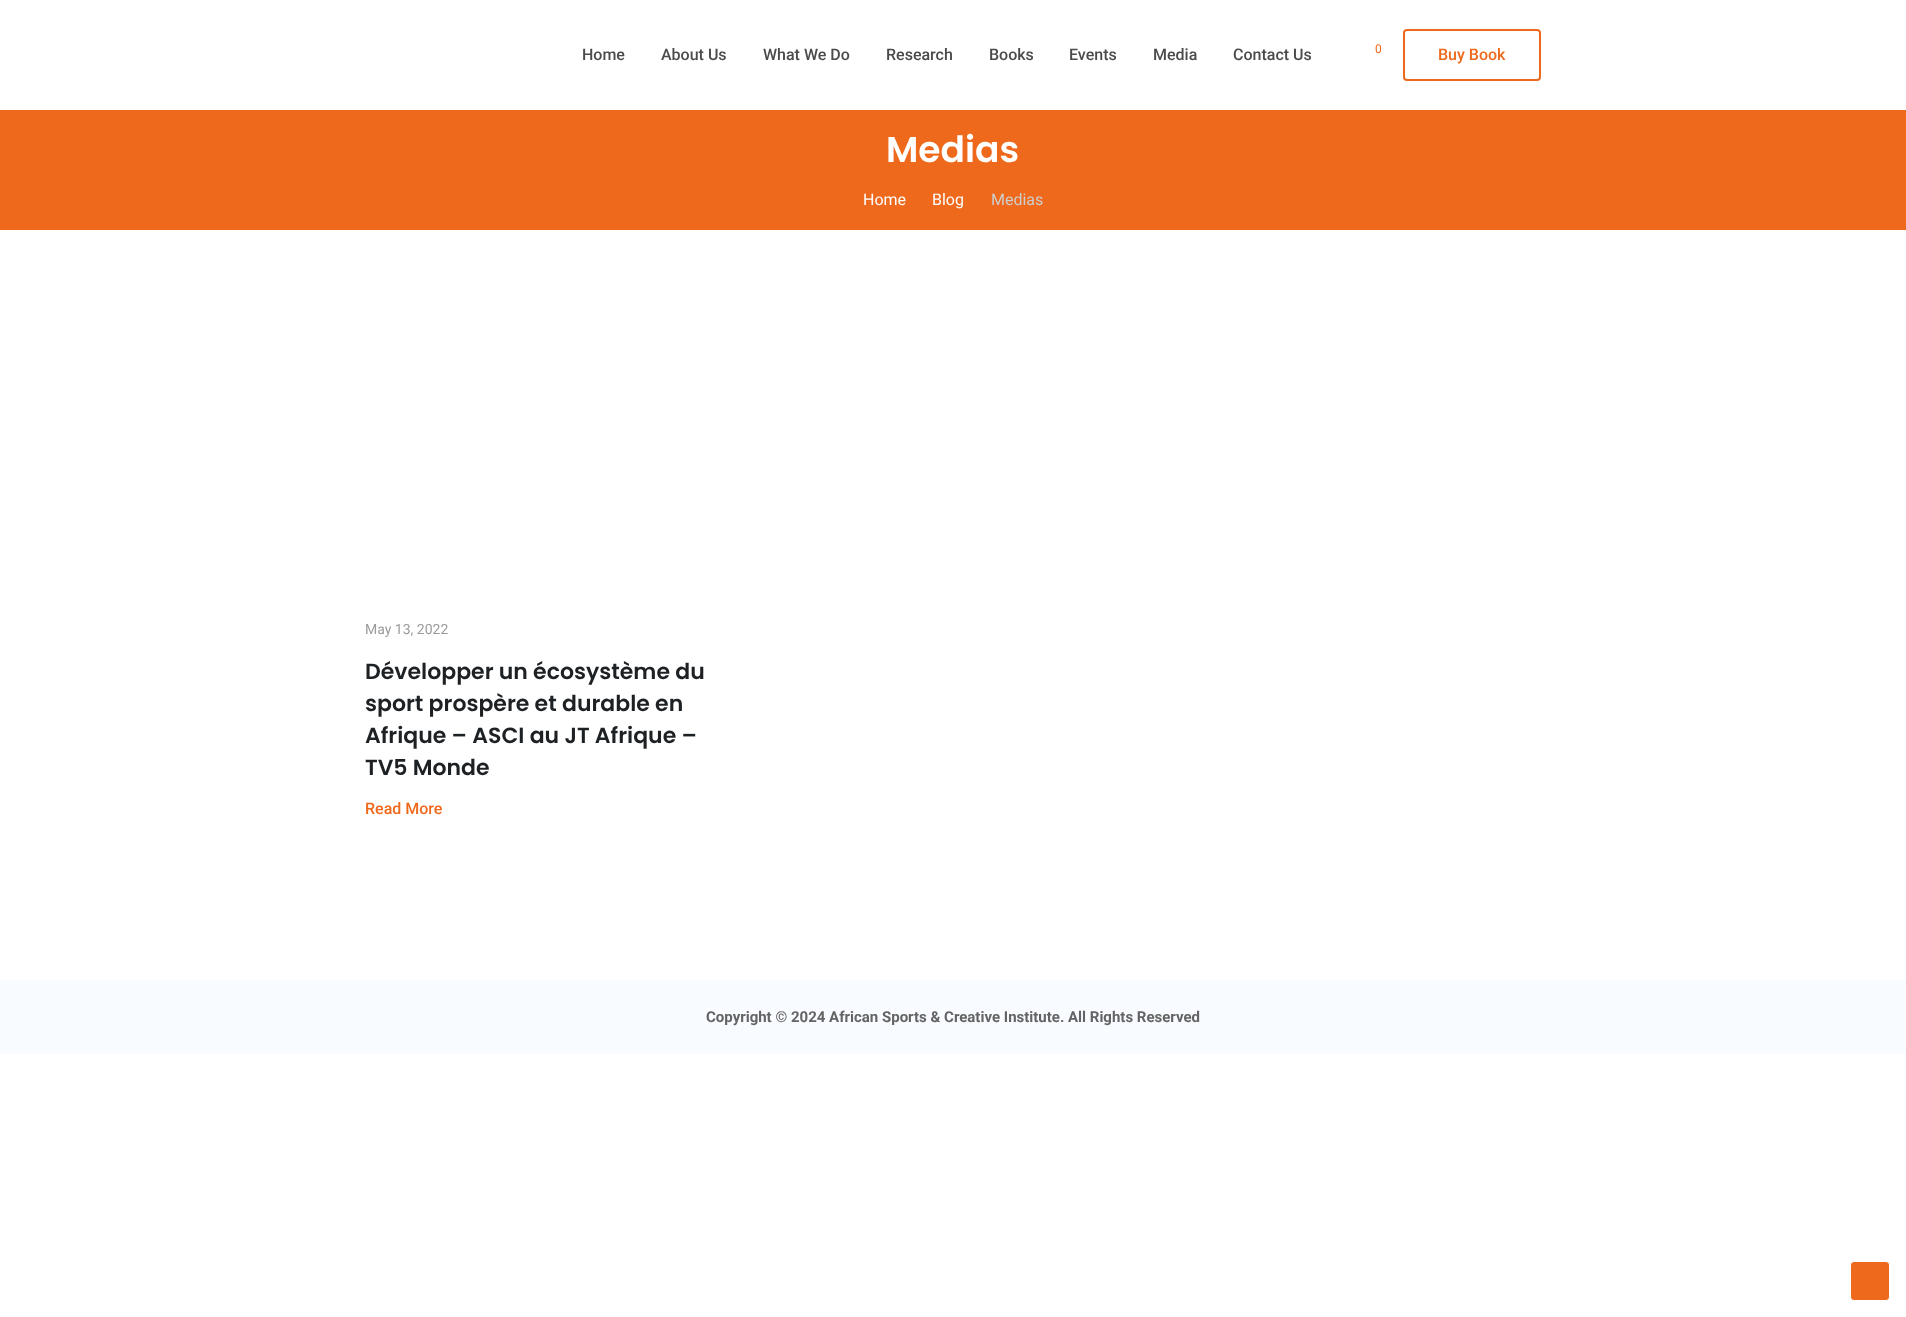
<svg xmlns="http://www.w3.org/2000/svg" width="1906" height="1317">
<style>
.a{font:500 16px Roboto;fill:#4c4b4b}
.b{font:12px Roboto;fill:#ee691b}
.c{font:500 16px Roboto;fill:#ee691b}
.d{font:600 36px Poppins;fill:#fff}
.e{font:16px Roboto;fill:#fff}
.f{font:16px Roboto;fill:#cecece}
.g{font:14px Roboto;fill:#9b9b9b}
.h{font:600 22px Poppins;fill:#1d2124}
.i{font:bold 15px Roboto;fill:#646464}
</style>
<rect width="100%" height="100%" fill="#fff"/>
<rect fill="none" stroke="#ee691b" stroke-width="2" x="1404" y="30" width="136" height="50" rx="3"/>
<path fill="#ee691b" d="M0 110h1906v120H0z"/>
<path fill="#f8fbff" d="M0 980h1906v74H0z"/>
<rect fill="#ee691b" stroke="#fff" x="1850.5" y="1261.5" width="39" height="39" rx="3.5"/>
<text class="a" x="582" y="60">Home</text>
<text class="a" x="661" y="60">About Us</text>
<text class="a" x="763" y="60">What We Do</text>
<text class="a" x="886" y="60">Research</text>
<text class="a" x="989" y="60">Books</text>
<text class="a" x="1069" y="60">Events</text>
<text class="a" x="1153" y="60">Media</text>
<text class="a" x="1233" y="60">Contact Us</text>
<text class="b" x="1375" y="53">0</text>
<text class="c" x="1438" y="60">Buy Book</text>
<text class="d" x="886" y="162">Medias</text>
<text class="e" x="863" y="205">Home</text>
<text class="e" x="932" y="205">Blog</text>
<text class="f" x="991" y="205">Medias</text>
<text class="g" x="365" y="634">May 13, 2022</text>
<text class="h" x="365" y="679">Développer un écosystème du</text>
<text class="h" x="365" y="711">sport prospère et durable en</text>
<text class="h" x="365" y="743">Afrique – ASCI au JT Afrique –</text>
<text class="h" x="365" y="775">TV5 Monde</text>
<text class="c" x="365" y="814">Read More</text>
<text class="i" x="706" y="1022">Copyright © 2024 African Sports &amp; Creative Institute. All Rights Reserved</text>
</svg>
